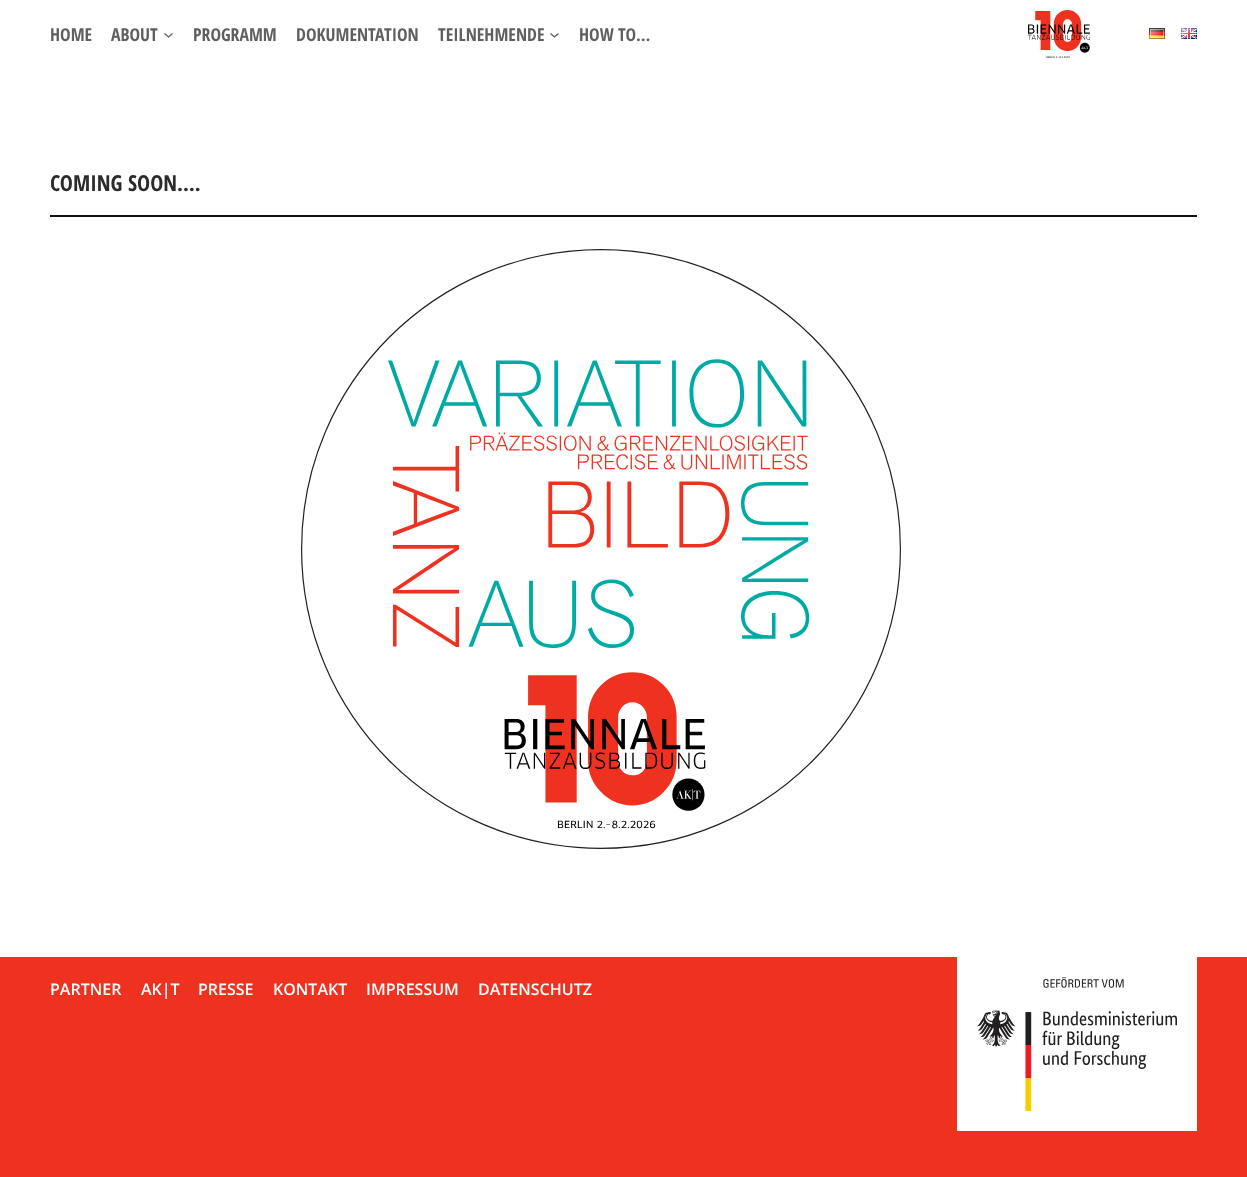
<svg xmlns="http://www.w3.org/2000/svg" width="1247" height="1177">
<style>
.a{font:bold 17.75px Open Sans Condensed;fill:#5f5f5f}
.b{font:bold 22px Open Sans Condensed;fill:#2b2b2b}
.c{font:600 16px Open Sans;fill:#fff}
</style>
<rect width="100%" height="100%" fill="#fff"/>
<path fill="none" stroke="#5f5f5f" stroke-width="1.3" d="M164.5 33.5l4 3.5l4-3.5"/>
<path fill="none" stroke="#5f5f5f" stroke-width="1.3" d="M550.5 33.5l4 3.5l4-3.5"/>
<image href="1.png" x="1028" y="10" width="62" height="48"/>
<image href="2.png" x="1149" y="28" width="16" height="11"/>
<image href="3.png" x="1181" y="28" width="16" height="11"/>
<path fill="#111" d="M50 215h1147v2H50z"/>
<image href="4.png" x="301" y="249" width="600" height="600"/>
<path fill="#ef3120" d="M0 957h1247v220H0z"/>
<image href="5.png" x="957" y="957" width="240" height="174"/>
<text class="a" x="50" y="41">HOME</text>
<text class="a" x="111" y="41">ABOUT</text>
<text class="a" x="193" y="41">PROGRAMM</text>
<text class="a" x="296" y="41">DOKUMENTATION</text>
<text class="a" x="438" y="41">TEILNEHMENDE</text>
<text class="a" x="579" y="41">HOW TO…</text>
<text class="b" x="50" y="191">COMING SOON….</text>
<text class="c" x="50" y="995">PARTNER</text>
<text class="c" x="141" y="995">AK|T</text>
<text class="c" x="198" y="995">PRESSE</text>
<text class="c" x="273" y="995">KONTAKT</text>
<text class="c" x="366" y="995">IMPRESSUM</text>
<text class="c" x="478" y="995">DATENSCHUTZ</text>
</svg>
